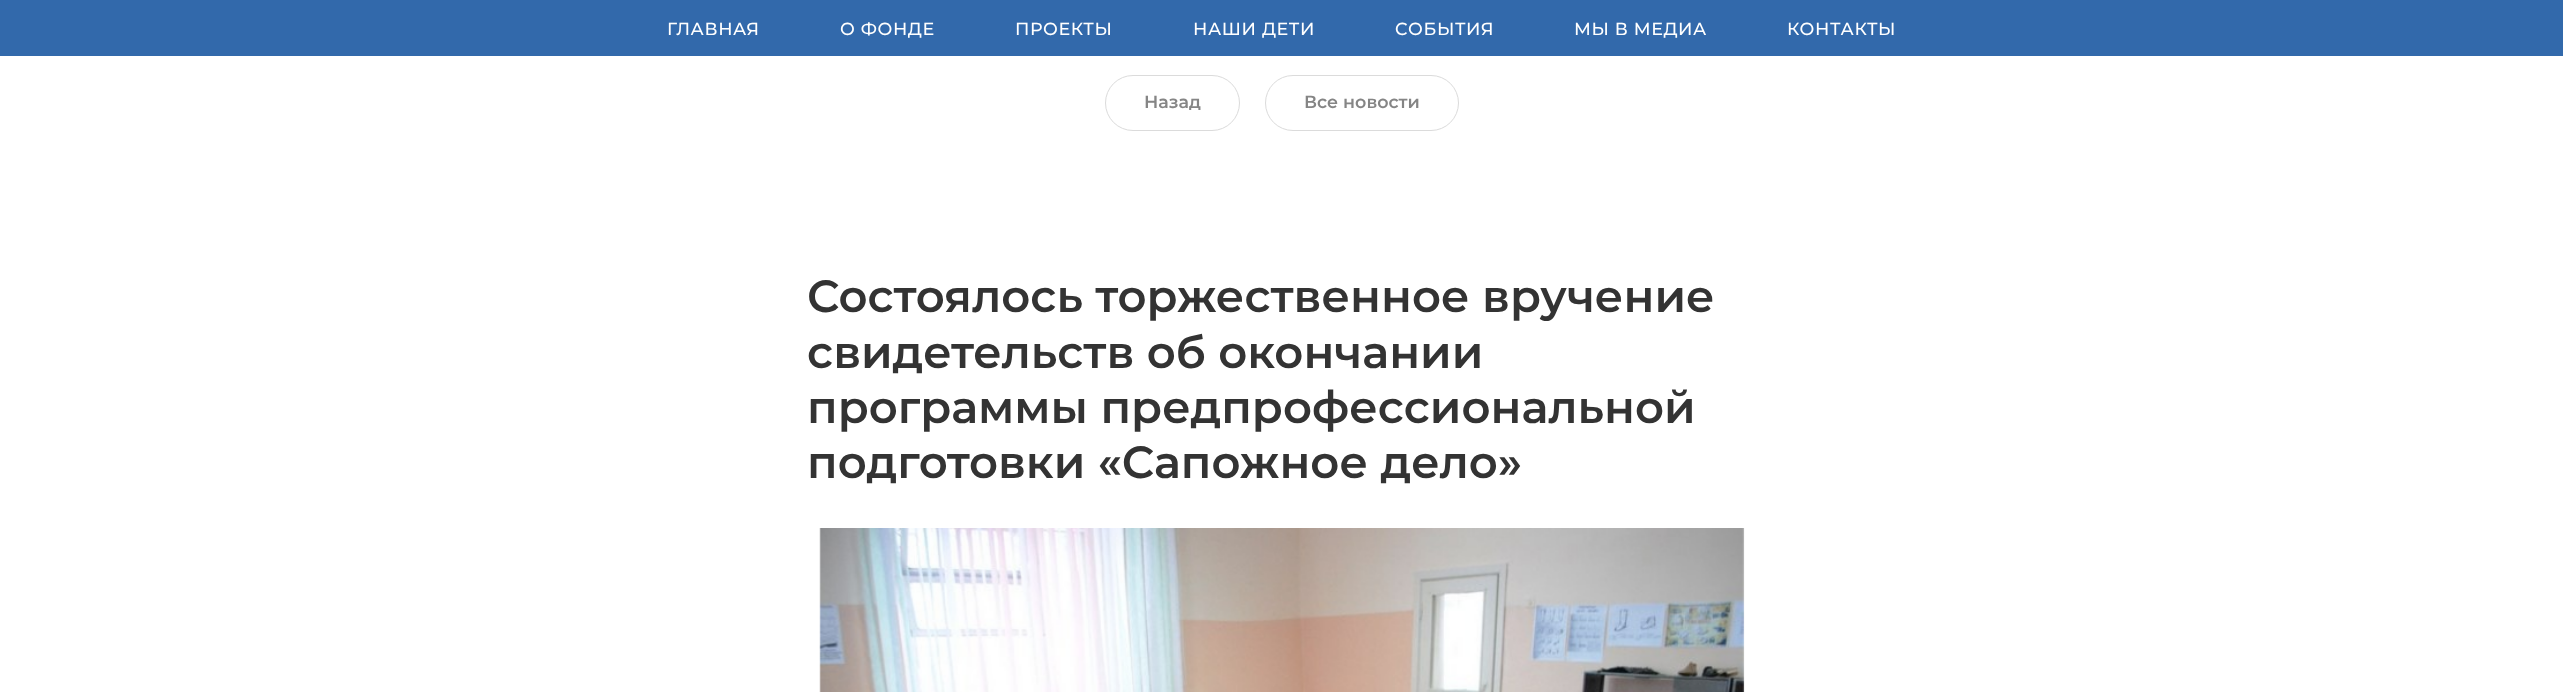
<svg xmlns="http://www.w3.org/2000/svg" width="2563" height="692">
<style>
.a{font:500 17.5px Montserrat;letter-spacing:0.6px;fill:#fff}
.b{font:600 17.5px Montserrat;fill:#858585}
.c{font:600 45px Montserrat;fill:#333}
</style>
<rect width="100%" height="100%" fill="#fff"/>
<path fill="#3269ab" d="M0 0h2563v56H0z"/>
<rect fill="none" stroke="#dbdbdb" x="1105.5" y="75.5" width="134" height="55" rx="27.5"/>
<rect fill="none" stroke="#dbdbdb" x="1265.5" y="75.5" width="193" height="55" rx="27.5"/>
<image href="1.png" x="819" y="528" width="926" height="164"/>
<text class="a" x="667" y="35">ГЛАВНАЯ</text>
<text class="a" x="840" y="35">О ФОНДЕ</text>
<text class="a" x="1015" y="35">ПРОЕКТЫ</text>
<text class="a" x="1193" y="35">НАШИ ДЕТИ</text>
<text class="a" x="1395" y="35">CОБЫТИЯ</text>
<text class="a" x="1574" y="35">МЫ В МЕДИА</text>
<text class="a" x="1787" y="35">КОНТАКТЫ</text>
<text class="b" x="1144" y="108">Назад</text>
<text class="b" x="1304" y="108">Все новости</text>
<text class="c" x="807" y="312">Состоялось торжественное вручение</text>
<text class="c" x="807" y="368">свидетельств об окончании</text>
<text class="c" x="807" y="423">программы предпрофессиональной</text>
<text class="c" x="807" y="478">подготовки «Сапожное дело»</text>
</svg>
